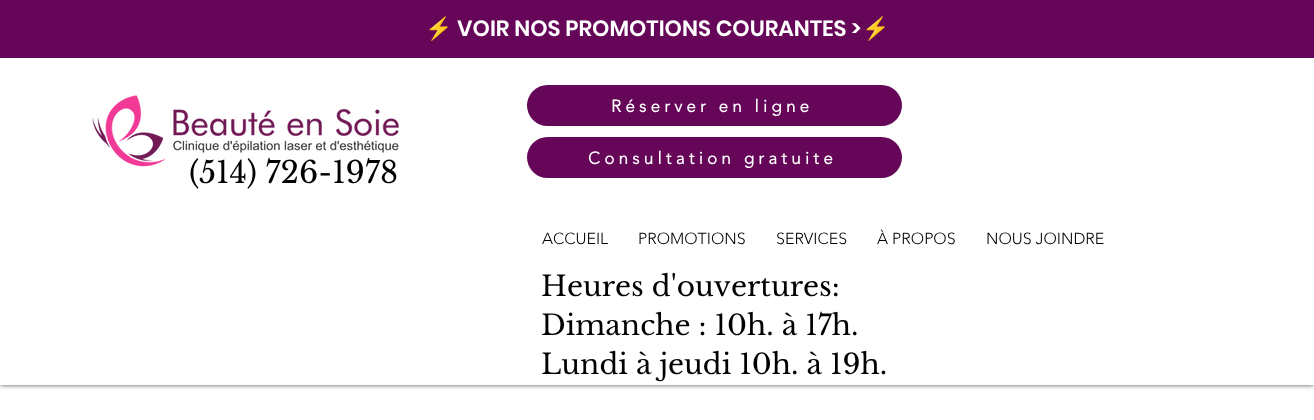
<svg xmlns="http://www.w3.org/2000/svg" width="1314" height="420">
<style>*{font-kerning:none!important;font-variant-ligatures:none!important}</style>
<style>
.a{font:22px Noto Color Emoji;fill:#000}
.b{font:600 22px Poppins;fill:#fff}
.c{font:bold 17px 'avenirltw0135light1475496';letter-spacing:4.25px;fill:#fff}
.d{font:30px Libre Baskerville;fill:#000}
.e{font:300 16px 'avenirltw0135light1475496';fill:#000}
.f{font:28px Libre Baskerville;fill:#000}
</style>
<defs>
<clipPath id="clip1"><path d="M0 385h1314v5H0z"/></clipPath>
</defs>
<rect width="100%" height="100%" fill="#fff"/>
<g clip-path="url(#clip1)">
<path fill="#000000b3" filter="blur(2.5px)" d="M0 0h1314v385H0z"/>
</g>
<path fill="#660658" d="M0 0h1314v58H0z"/>
<image href="1.png" x="92" y="95" width="307" height="72"/>
<rect fill="#660658" x="527" y="85" width="375" height="41" rx="20.5"/>
<rect fill="#660658" x="527" y="137" width="375" height="41" rx="20.5"/>
<text class="a" x="425" y="36">⚡</text>
<text class="b" x="457" y="36">VOIR NOS PROMOTIONS COURANTES &gt;</text>
<text class="a" x="862" y="36">⚡</text>
<text class="c" x="611" y="112">Réserver en ligne</text>
<text class="d" x="189" y="183">(514) 726-1978</text>
<text class="c" x="588" y="164">Consultation gratuite</text>
<text class="e" x="542" y="244">ACCUEIL</text>
<text class="e" x="638" y="244">PROMOTIONS</text>
<text class="e" x="776" y="244">SERVICES</text>
<text class="e" x="877" y="244">À PROPOS</text>
<text class="e" x="986" y="244">NOUS JOINDRE</text>
<text class="f" x="541" y="296">Heures d'ouvertures:</text>
<text class="f" x="541" y="335">Dimanche : 10h. à 17h.</text>
<text class="f" x="541" y="374">Lundi à jeudi 10h. à 19h.</text>
</svg>
